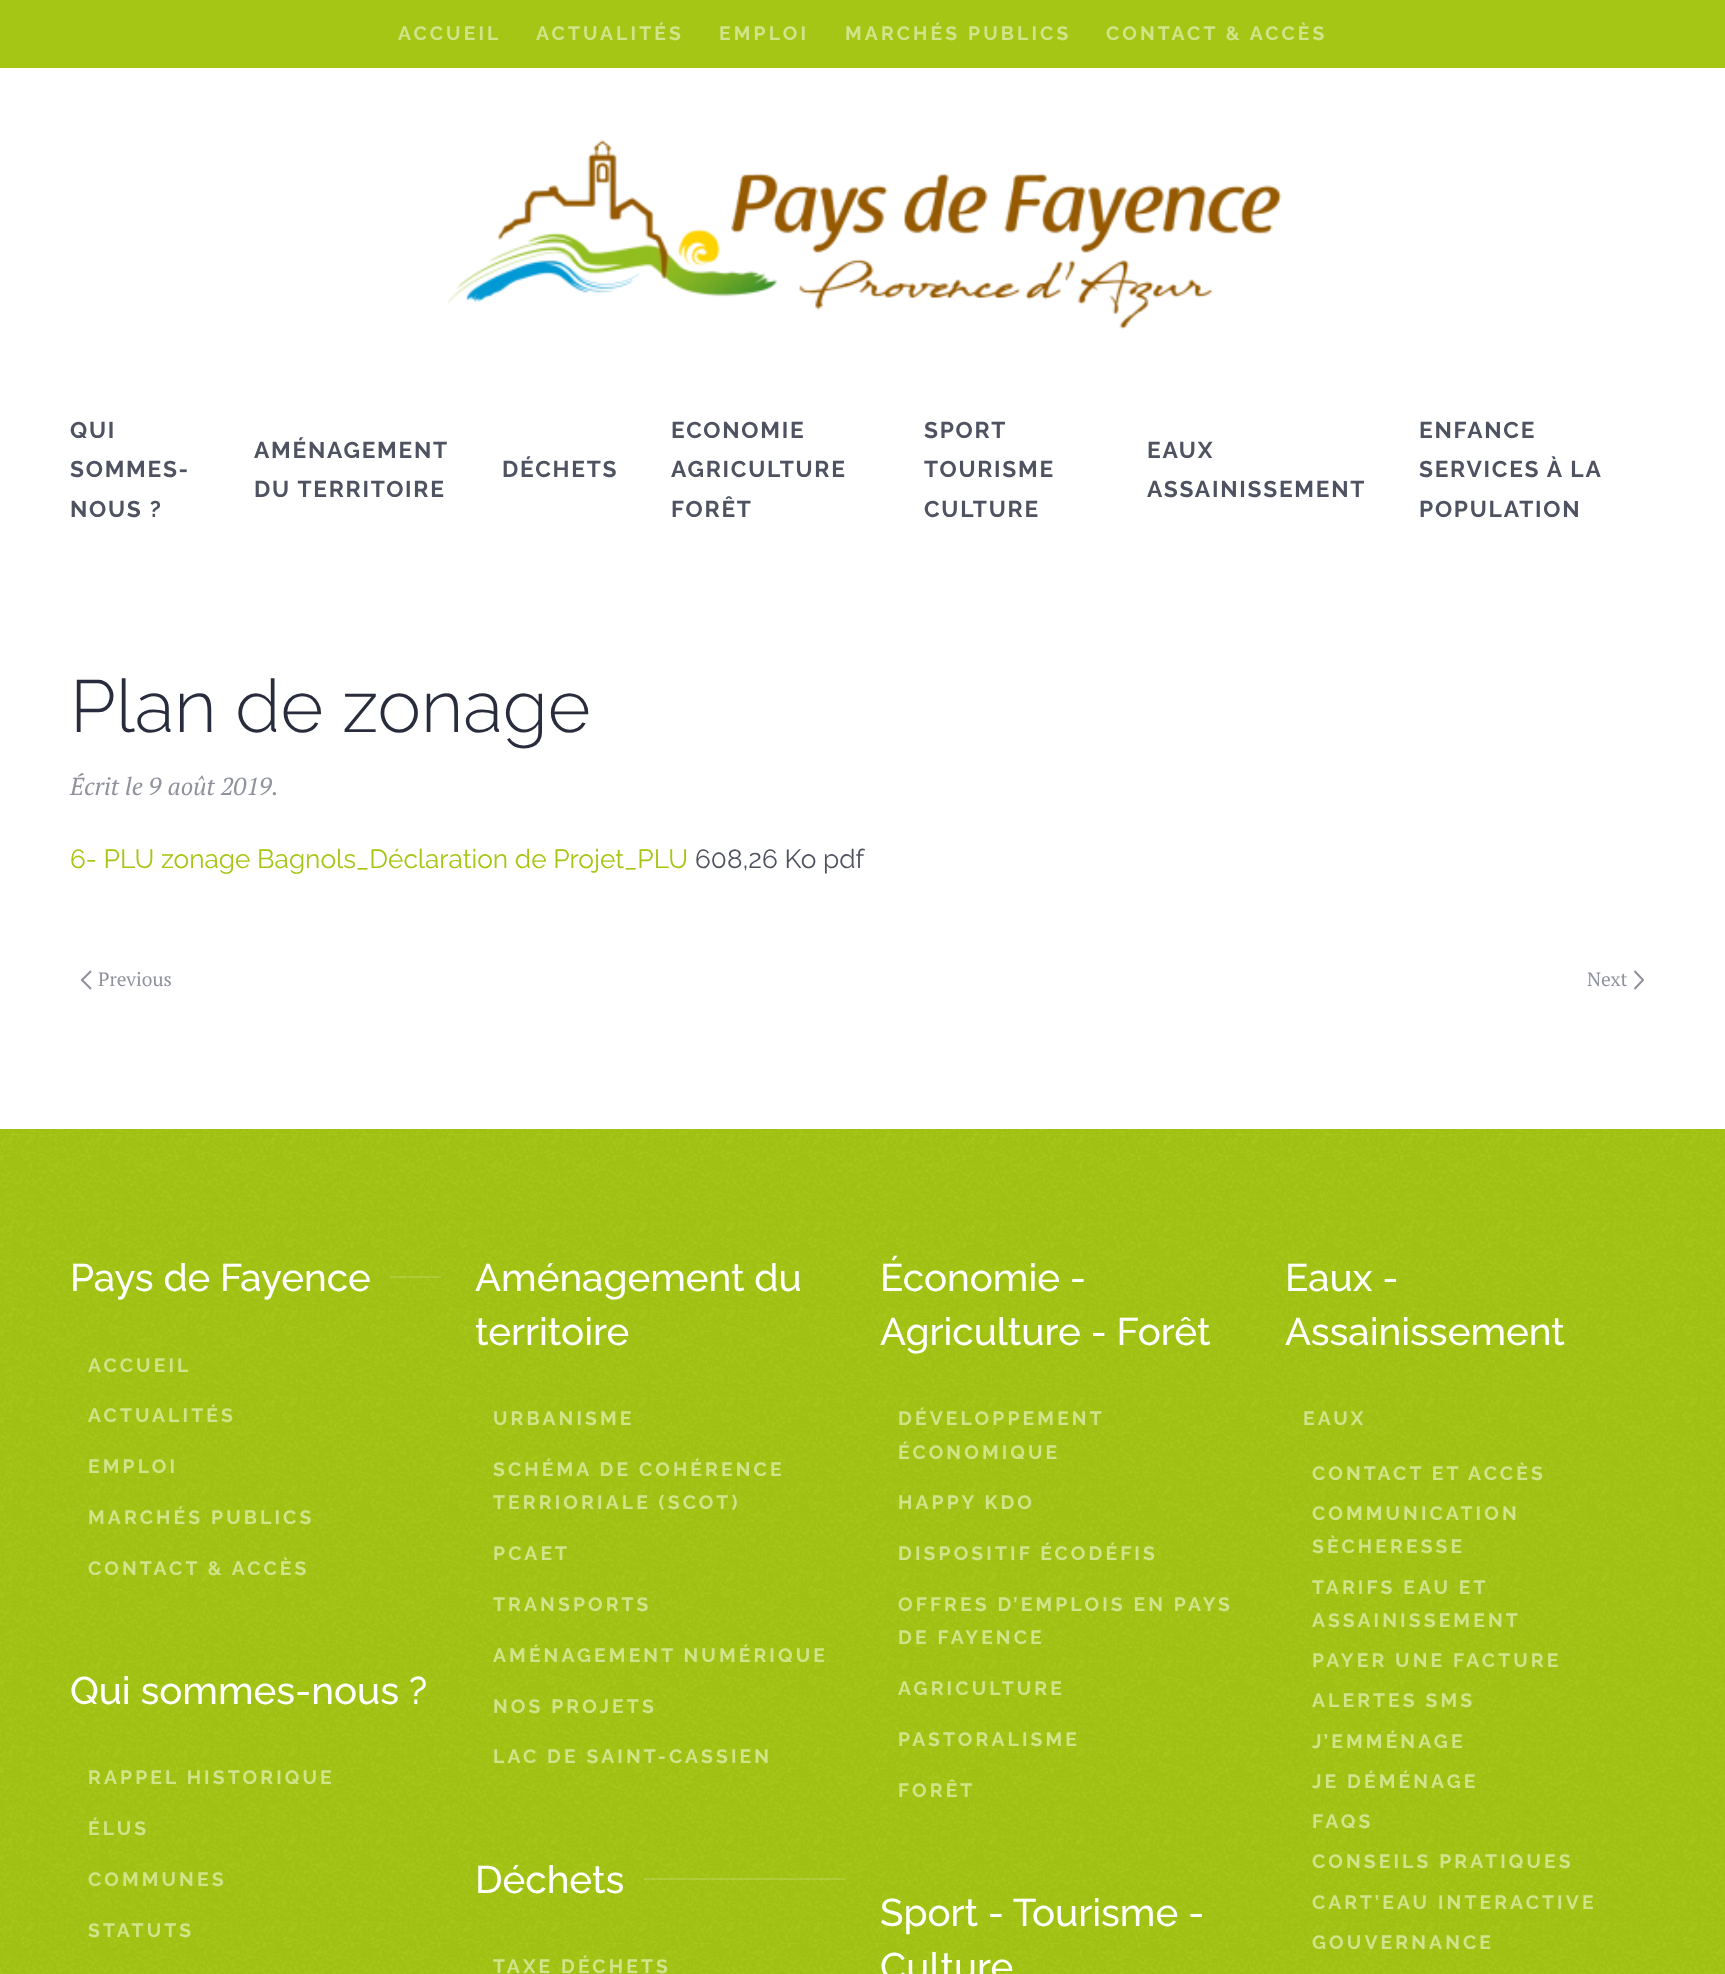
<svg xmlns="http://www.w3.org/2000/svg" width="1725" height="1974">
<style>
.a{font:100 19.25px 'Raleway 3';letter-spacing:3.15px;fill:#d2e38a}
.b{font:100 22.75px 'Raleway 3';letter-spacing:1.75px;fill:#4f5260}
.c{font:100 73.5px Raleway;fill:#292c3d}
.d{font:italic 24.5px PT Serif;fill:#90929d}
.e{font:100 26.25px 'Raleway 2';fill:#a5c614}
.f{font:100 26.25px 'Raleway 2';fill:#4f5260}
.g{font:19.25px PT Serif;fill:#90929d}
.h{font:100 38.5px 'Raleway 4';fill:#fff}
</style>
<rect width="100%" height="100%" fill="#fff"/>
<path fill="#a5c614" d="M0 0h1725v68H0z"/>
<image href="1.png" x="447" y="139" width="835" height="191"/>
<path fill="none" stroke="#90929d" stroke-width="2.1" d="M91 971l-9 9l9 9"/>
<path fill="none" stroke="#90929d" stroke-width="2.1" d="M1634.5 971l8.5 9l-8.5 9"/>
<path fill="#a5c614" d="M0 1129h1725v845H0z"/>
<image href="2.png" x="0" y="1129" width="1725" height="845"/>
<path fill="#ffffff26" d="M390 1276h51v2H390z"/>
<path fill="#ffffff26" d="M644 1878h201v2H644z"/>
<text class="a" x="398" y="40">ACCUEIL</text>
<text class="a" x="536" y="40">ACTUALITÉS</text>
<text class="a" x="719" y="40">EMPLOI</text>
<text class="a" x="845" y="40">MARCHÉS PUBLICS</text>
<text class="a" x="1106" y="40">CONTACT &amp; ACCÈS</text>
<text class="b" x="70" y="438">QUI</text>
<text class="b" x="70" y="477">SOMMES-</text>
<text class="b" x="70" y="517">NOUS ?</text>
<text class="b" x="254" y="458">AMÉNAGEMENT</text>
<text class="b" x="254" y="497">DU TERRITOIRE</text>
<text class="b" x="502" y="477">DÉCHETS</text>
<text class="b" x="671" y="438">ECONOMIE</text>
<text class="b" x="671" y="477">AGRICULTURE</text>
<text class="b" x="671" y="517">FORÊT</text>
<text class="b" x="924" y="438">SPORT</text>
<text class="b" x="924" y="477">TOURISME</text>
<text class="b" x="924" y="517">CULTURE</text>
<text class="b" x="1147" y="458">EAUX</text>
<text class="b" x="1147" y="497">ASSAINISSEMENT</text>
<text class="b" x="1419" y="438">ENFANCE</text>
<text class="b" x="1419" y="477">SERVICES À LA</text>
<text class="b" x="1419" y="517">POPULATION</text>
<text class="c" x="70" y="732">Plan de zonage</text>
<text class="d" x="70" y="795">Écrit le 9 août 2019.</text>
<text class="e" x="70" y="868">6- PLU zonage Bagnols_Déclaration de Projet_PLU</text>
<text class="f" x="695" y="868">608,26 Ko pdf</text>
<text class="g" x="98" y="986">Previous</text>
<text class="g" x="1587" y="986">Next</text>
<text class="h" x="70" y="1291">Pays de Fayence</text>
<text class="a" x="88" y="1372">ACCUEIL</text>
<text class="a" x="88" y="1422">ACTUALITÉS</text>
<text class="a" x="88" y="1473">EMPLOI</text>
<text class="a" x="88" y="1524">MARCHÉS PUBLICS</text>
<text class="a" x="88" y="1575">CONTACT &amp; ACCÈS</text>
<text class="h" x="70" y="1704">Qui sommes-nous ?</text>
<text class="a" x="88" y="1784">RAPPEL HISTORIQUE</text>
<text class="a" x="88" y="1835">ÉLUS</text>
<text class="a" x="88" y="1886">COMMUNES</text>
<text class="a" x="88" y="1937">STATUTS</text>
<text class="h" x="475" y="1291">Aménagement du</text>
<text class="h" x="475" y="1345">territoire</text>
<text class="a" x="493" y="1425">URBANISME</text>
<text class="a" x="493" y="1476">SCHÉMA DE COHÉRENCE</text>
<text class="a" x="493" y="1509">TERRIORIALE (SCOT)</text>
<text class="a" x="493" y="1560">PCAET</text>
<text class="a" x="493" y="1611">TRANSPORTS</text>
<text class="a" x="493" y="1662">AMÉNAGEMENT NUMÉRIQUE</text>
<text class="a" x="493" y="1713">NOS PROJETS</text>
<text class="a" x="493" y="1763">LAC DE SAINT-CASSIEN</text>
<text class="h" x="475" y="1893">Déchets</text>
<text class="a" x="493" y="1973">TAXE DÉCHETS</text>
<text class="h" x="880" y="1291">Économie -</text>
<text class="h" x="880" y="1345">Agriculture - Forêt</text>
<text class="a" x="898" y="1425">DÉVELOPPEMENT</text>
<text class="a" x="898" y="1459">ÉCONOMIQUE</text>
<text class="a" x="898" y="1509">HAPPY KDO</text>
<text class="a" x="898" y="1560">DISPOSITIF ÉCODÉFIS</text>
<text class="a" x="898" y="1611">OFFRES D’EMPLOIS EN PAYS</text>
<text class="a" x="898" y="1644">DE FAYENCE</text>
<text class="a" x="898" y="1695">AGRICULTURE</text>
<text class="a" x="898" y="1746">PASTORALISME</text>
<text class="a" x="898" y="1797">FORÊT</text>
<text class="h" x="880" y="1926">Sport - Tourisme -</text>
<text class="h" x="880" y="1980">Culture</text>
<text class="h" x="1285" y="1291">Eaux -</text>
<text class="h" x="1285" y="1345">Assainissement</text>
<text class="a" x="1303" y="1425">EAUX</text>
<text class="a" x="1312" y="1480">CONTACT ET ACCÈS</text>
<text class="a" x="1312" y="1520">COMMUNICATION</text>
<text class="a" x="1312" y="1553">SÈCHERESSE</text>
<text class="a" x="1312" y="1594">TARIFS EAU ET</text>
<text class="a" x="1312" y="1627">ASSAINISSEMENT</text>
<text class="a" x="1312" y="1667">PAYER UNE FACTURE</text>
<text class="a" x="1312" y="1707">ALERTES SMS</text>
<text class="a" x="1312" y="1748">J’EMMÉNAGE</text>
<text class="a" x="1312" y="1788">JE DÉMÉNAGE</text>
<text class="a" x="1312" y="1828">FAQS</text>
<text class="a" x="1312" y="1868">CONSEILS PRATIQUES</text>
<text class="a" x="1312" y="1909">CART’EAU INTERACTIVE</text>
<text class="a" x="1312" y="1949">GOUVERNANCE</text>
</svg>
